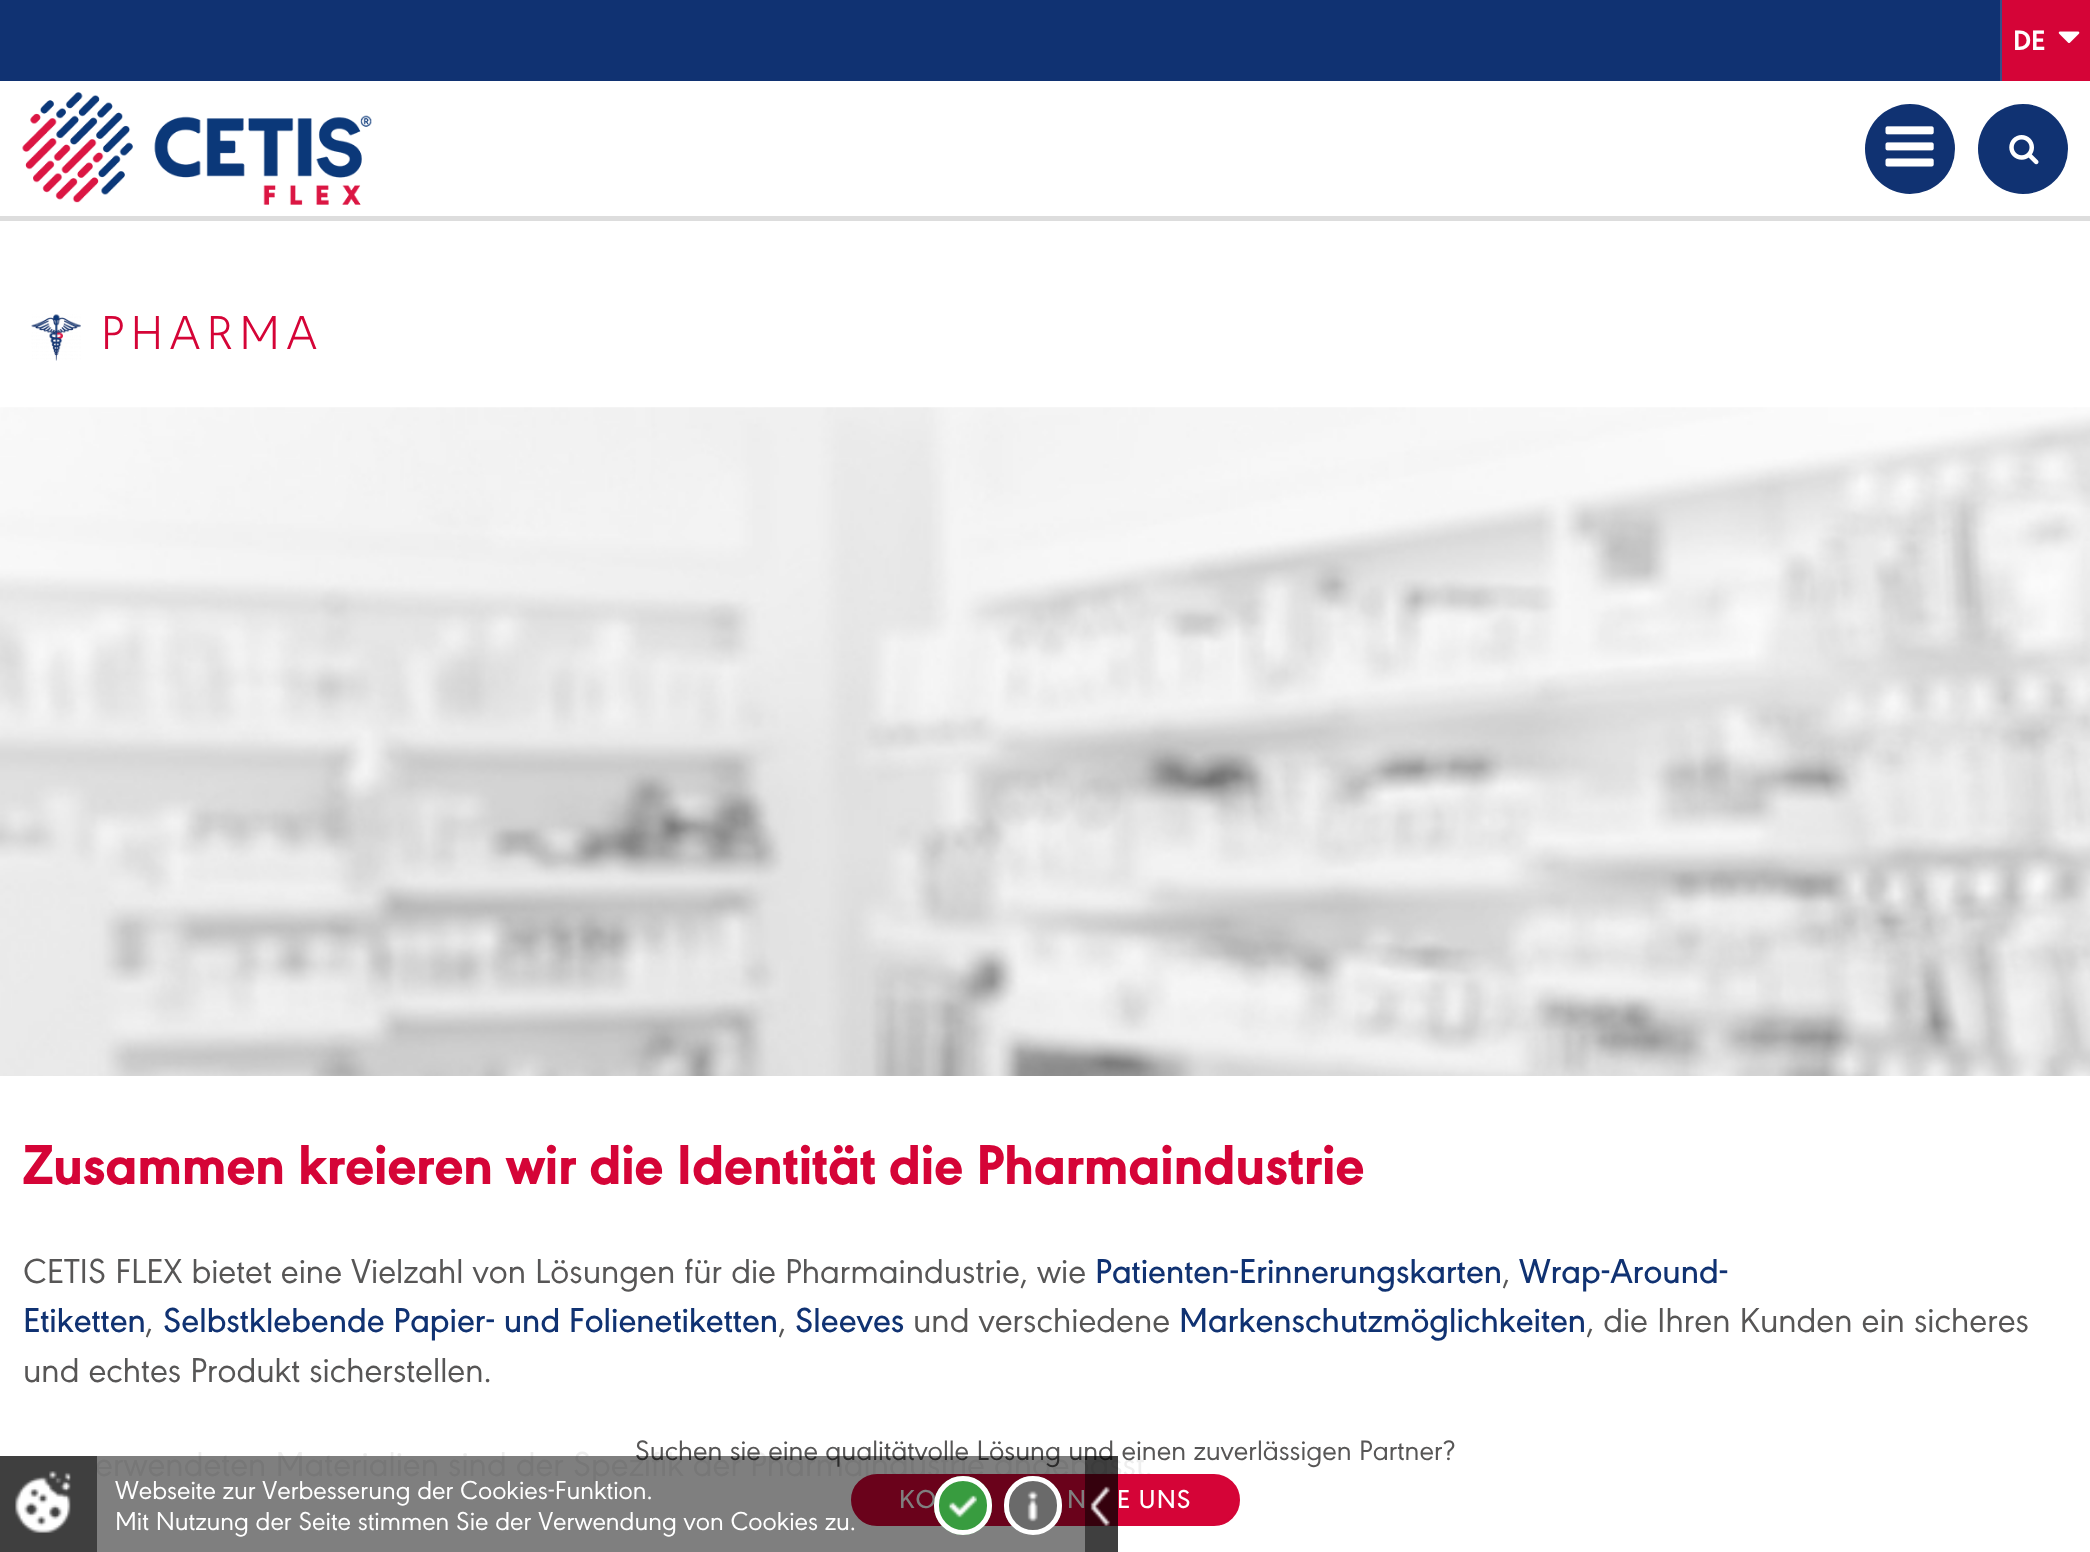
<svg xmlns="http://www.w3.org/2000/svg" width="2090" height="1552">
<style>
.a{font:29.25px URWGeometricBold;fill:#fff}
.b{font:49.5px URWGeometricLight;letter-spacing:6.75px;fill:#d50437}
.c{font:58.5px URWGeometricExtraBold;fill:#d50437}
.d{font:36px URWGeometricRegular;fill:#575656}
.e{font:36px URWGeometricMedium;fill:#103272}
.f{font:36px URWGeometricRegular;fill:#eee}
.g{font:29.25px URWGeometricRegular;fill:#575656}
.h{font:27px URWGeometricMedium;letter-spacing:1px;fill:#fff}
.i{font:27px URWGeometricRegular;fill:#fff}
</style>
<rect width="100%" height="100%" fill="#fff"/>
<path fill="#103272" d="M0 0h2000v81H0z"/>
<path fill="#d50437" d="M2002 0h88v81H2002z"/>
<path fill="#355089" d="M2000 0h2v81H2000z"/>
<image href="1.png" x="2058" y="31" width="22" height="12"/>
<path fill="#ddd" d="M0 216h2090v5H0z"/>
<image href="2.png" x="22" y="92" width="350" height="113"/>
<circle fill="#103272" cx="1910" cy="149" r="45"/>
<image href="3.png" x="1885" y="126" width="49" height="41"/>
<circle fill="#103272" cx="2023" cy="149" r="45"/>
<image href="4.png" x="2009" y="135" width="30" height="30"/>
<image href="5.png" x="31" y="314" width="50" height="47"/>
<image href="6.png" x="0" y="407" width="2090" height="669"/>
<text class="a" x="2013" y="50">DE</text>
<text class="b" x="101" y="349">PHARMA</text>
<text class="c" x="23" y="1184">Zusammen kreieren wir die Identität die Pharmaindustrie</text>
<text class="d" x="23" y="1283">CETIS FLEX bietet eine Vielzahl von Lösungen für die Pharmaindustrie, wie</text>
<text class="e" x="1095" y="1283">Patienten-Erinnerungskarten</text>
<text class="d" x="1502" y="1283">,</text>
<text class="e" x="1519" y="1283">Wrap-Around-</text>
<text class="e" x="23" y="1332">Etiketten</text>
<text class="d" x="145" y="1332">,</text>
<text class="e" x="163" y="1332">Selbstklebende Papier- und Folienetiketten</text>
<text class="d" x="778" y="1332">,</text>
<text class="e" x="795" y="1332">Sleeves</text>
<text class="d" x="913" y="1332">und verschiedene</text>
<text class="e" x="1179" y="1332">Markenschutzmöglichkeiten</text>
<text class="d" x="1586" y="1332">, die Ihren Kunden ein sicheres</text>
<text class="d" x="23" y="1382">und echtes Produkt sicherstellen.</text>
<text class="f" x="95" y="1476">erwendeten Materialien sind der Spezifik der Pharmaindustrie angepasst.</text>
<text class="g" x="635" y="1460">Suchen sie eine qualitätvolle Lösung und einen zuverlässigen Partner?</text>
<rect fill="#d50437" stroke="#d50437" stroke-width="2" x="852" y="1475" width="387" height="50" rx="25"/>
<text class="h" x="899" y="1508">KO</text>
<text class="h" x="1067" y="1508">N</text>
<text class="h" x="1117" y="1508">E UNS</text>
<path fill="#00000080" d="M0 1456h97v96H0z"/>
<path fill="#00000080" d="M1085 1456h33v96H1085z"/>
<path fill="#00000080" d="M0 1456h1118v96H0z"/>
<rect fill="#6a6a6a" x="1004" y="1476" width="58" height="59" rx="29"/>
<image href="9.png" x="1027" y="1490" width="11" height="32"/>
<rect fill="none" stroke="#fff" stroke-width="5" x="1006.5" y="1478.5" width="53" height="54" rx="26.5"/>
<rect fill="#389c3f" x="934" y="1476" width="58" height="59" rx="29"/>
<image href="8.png" x="948" y="1495" width="29" height="23"/>
<rect fill="none" stroke="#fff" stroke-width="5" x="936.5" y="1478.5" width="53" height="54" rx="26.5"/>
<text class="i" x="115" y="1530">Mit Nutzung der Seite stimmen Sie der Verwendung von Cookies zu.</text>
<text class="i" x="115" y="1499">Webseite zur Verbesserung der Cookies-Funktion.</text>
<image href="7.png" x="15" y="1471" width="56" height="62"/>
<image href="10.png" x="1090" y="1486" width="21" height="40"/>
</svg>
